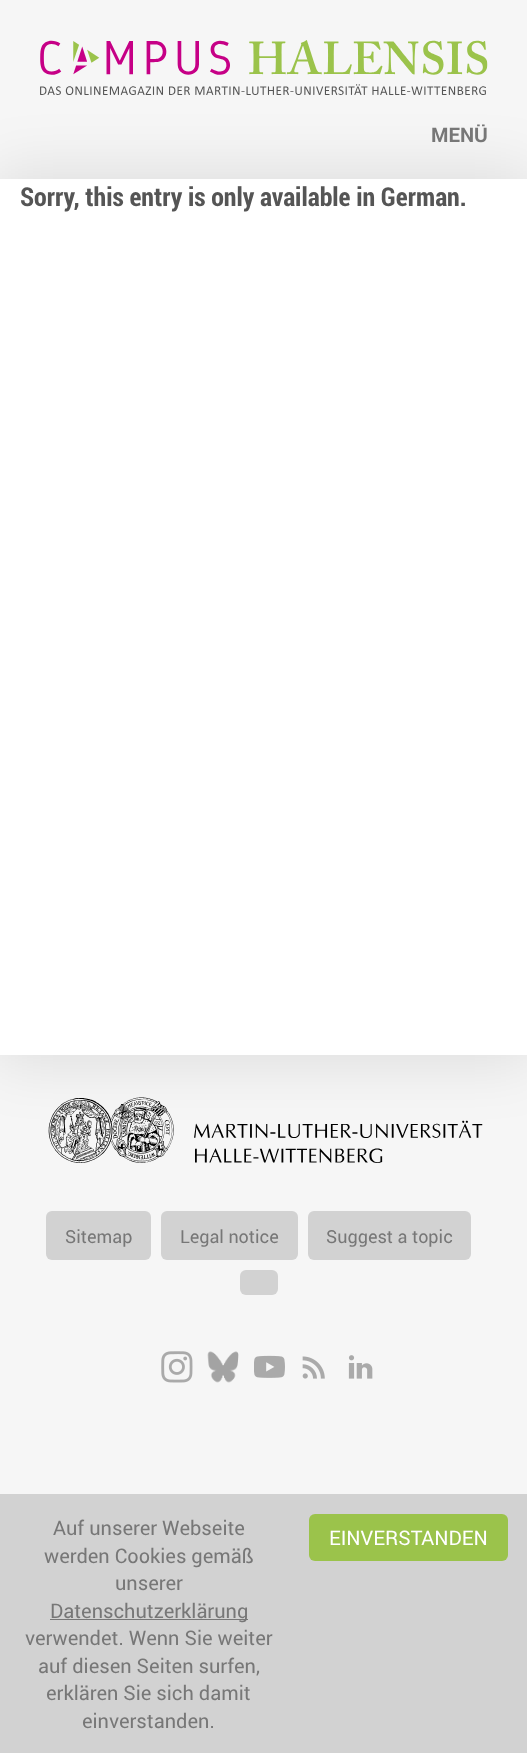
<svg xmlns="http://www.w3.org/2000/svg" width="527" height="1753">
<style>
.a{font:bold 20px Roboto;fill:#777}
.b{font:bold 26px Roboto Condensed;fill:#555}
.c{font:18px Roboto;fill:#777}
.d{font:20px Roboto;fill:#777}
.e{font:20px Roboto;fill:#fff}
</style>
<rect width="100%" height="100%" fill="#f6f6f6"/>
<image href="1.png" x="40" y="40" width="448" height="55"/>
<path fill="#0000001a" filter="blur(31px)" d="M-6 173h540v888H-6z"/>
<path fill="#fff" d="M0 179h527v876H0z"/>
<image href="2.png" x="48" y="1097" width="435" height="66"/>
<rect fill="#d2d2d2" x="46" y="1211" width="105" height="49" rx="6"/>
<rect fill="#d2d2d2" x="161" y="1211" width="137" height="49" rx="6"/>
<rect fill="#d2d2d2" x="308" y="1211" width="163" height="49" rx="6"/>
<rect fill="#d2d2d2" x="240" y="1270" width="38" height="25" rx="6"/>
<image href="3.png" x="161" y="1351" width="32" height="32"/>
<image href="4.png" x="207" y="1351" width="32" height="32"/>
<image href="5.png" x="254" y="1355" width="31" height="23"/>
<image href="6.png" x="302" y="1356" width="23" height="23"/>
<image href="7.png" x="348" y="1355" width="25" height="24"/>
<path fill="#d2d2d2" d="M0 1494h527v259H0z"/>
<rect fill="#9bc34b" x="309" y="1514" width="199" height="47" rx="6"/>
<path fill="#777" d="M50 1619h198v1H50z"/>
<text class="a" x="431" y="142">MENÜ</text>
<text class="b" x="20" y="206">Sorry, this entry is only available in German.</text>
<text class="c" x="65" y="1243">Sitemap</text>
<text class="c" x="180" y="1243">Legal notice</text>
<text class="c" x="326" y="1243">Suggest a topic</text>
<text class="d" x="53" y="1535">Auf unserer Webseite</text>
<text class="e" x="329" y="1545">EINVERSTANDEN</text>
<text class="d" x="44" y="1563">werden Cookies gemäß</text>
<text class="d" x="115" y="1590">unserer</text>
<text class="d" x="50" y="1618">Datenschutzerklärung</text>
<text class="d" x="25" y="1645">verwendet. Wenn Sie weiter</text>
<text class="d" x="38" y="1673">auf diesen Seiten surfen,</text>
<text class="d" x="46" y="1700">erklären Sie sich damit</text>
<text class="d" x="82" y="1728">einverstanden.</text>
</svg>
